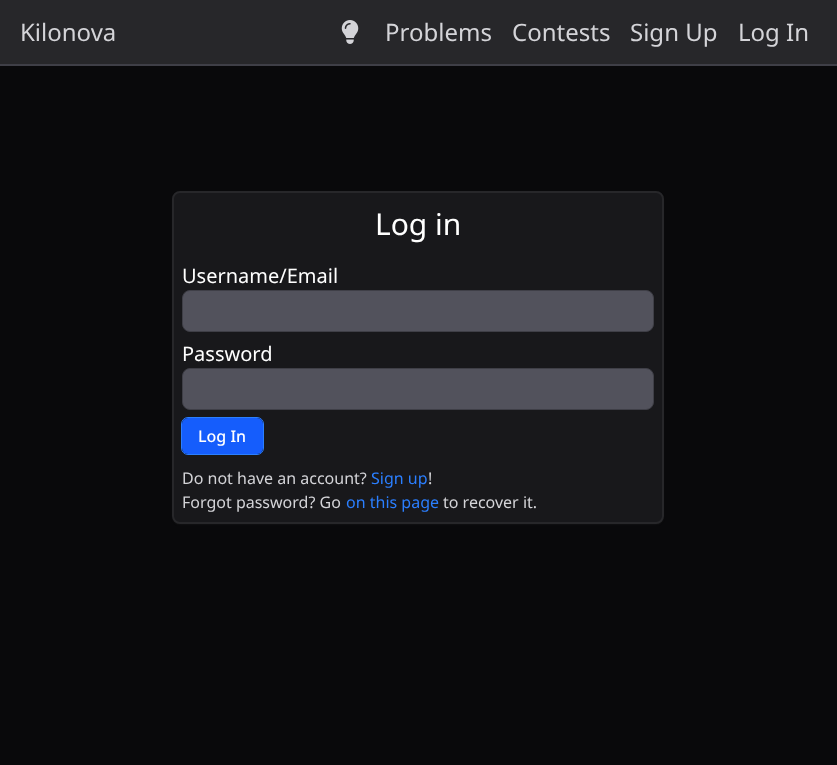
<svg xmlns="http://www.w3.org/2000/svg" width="837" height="765">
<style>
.a{font:24px Noto Sans;fill:#d4d4d8}
.b{font:30px Noto Sans;fill:#fff}
.c{font:20px Noto Sans;fill:#fff}
.d{font:500 16px Noto Sans;fill:#fff}
.e{font:16px Noto Sans;fill:#d4d4d8}
.f{font:16px Noto Sans;fill:#2b7fff}
</style>
<rect width="100%" height="100%" fill="#09090b"/>
<path fill="#27272a" d="M0 0h837v64H0z"/>
<path fill="#3f3f47" d="M0 64h837v2H0z"/>
<image href="1.png" x="341" y="20" width="18" height="24"/>
<rect fill="#27272a80" filter="blur(1px)" x="173" y="193" width="490" height="331" rx="7"/>
<rect fill="#18181b" stroke="#27272a" stroke-width="2" x="173" y="192" width="490" height="331" rx="7"/>
<rect fill="#52525c" stroke="#3f3f47" x="182.5" y="290.5" width="471" height="41" rx="7.5"/>
<rect fill="#52525c" stroke="#3f3f47" x="182.5" y="368.5" width="471" height="41" rx="7.5"/>
<rect fill="none" stroke="#2b7fff" x="181.5" y="417.5" width="82" height="37" rx="6.5"/>
<rect fill="#155dfc" x="182" y="418" width="81" height="36" rx="6"/>
<text class="a" x="20" y="41">Kilonova</text>
<text class="a" x="385" y="41">Problems</text>
<text class="a" x="512" y="41">Contests</text>
<text class="a" x="630" y="41">Sign Up</text>
<text class="a" x="738" y="41">Log In</text>
<text class="b" x="375" y="235">Log in</text>
<text class="c" x="182" y="283">Username/Email</text>
<text class="c" x="182" y="361">Password</text>
<text class="d" x="198" y="442">Log In</text>
<text class="e" x="182" y="484">Do not have an account?</text>
<text class="f" x="371" y="484">Sign up</text>
<text class="e" x="428" y="484">!</text>
<text class="e" x="182" y="508">Forgot password? Go</text>
<text class="f" x="346" y="508">on this page</text>
<text class="e" x="443" y="508">to recover it.</text>
</svg>
